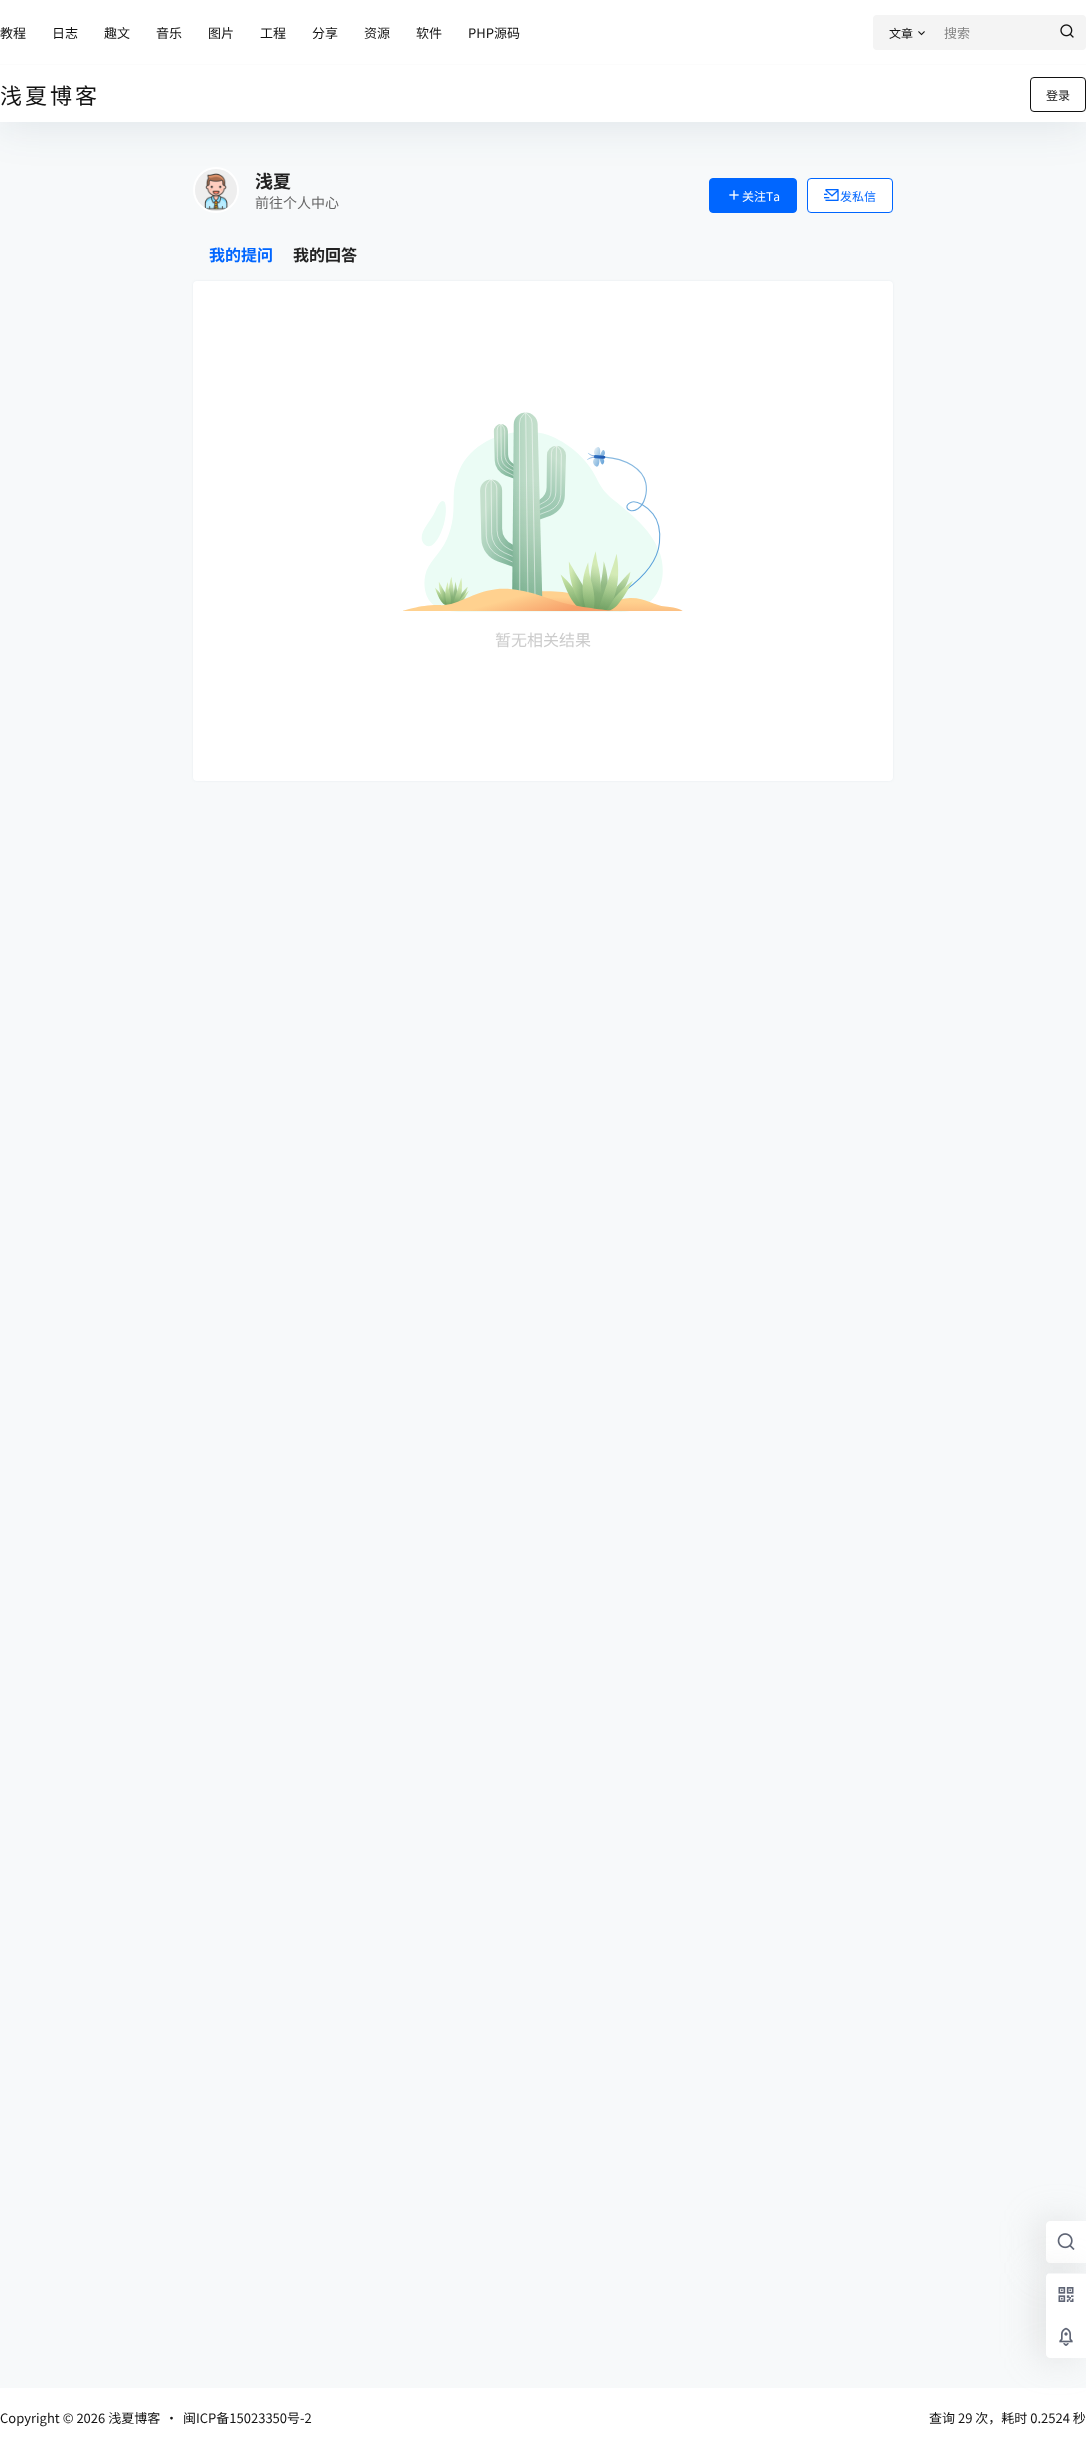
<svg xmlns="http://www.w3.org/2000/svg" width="1086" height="2448">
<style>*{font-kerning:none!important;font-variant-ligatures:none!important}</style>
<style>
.a{font:13px Noto Sans CJK SC;fill:#121212}
.b{font:12px Noto Sans CJK SC;fill:#121212}
.c{font:13px Noto Sans CJK SC;fill:#838383}
.d{font:22px Noto Sans CJK SC;letter-spacing:3px;fill:#121212}
.e{font:bold 18px Noto Sans CJK SC;fill:#222}
.f{font:14px Noto Sans CJK SC;fill:#666}
.g{font:12px Noto Sans CJK SC;fill:#fff}
.h{font:12px Noto Sans CJK SC;fill:#06f}
.i{font:bold 16px Noto Sans CJK SC;fill:#06f}
.j{font:bold 16px Noto Sans CJK SC;fill:#222}
.k{font:16px Noto Sans CJK SC;fill:#ccc}
</style>
<rect width="100%" height="100%" fill="#f7f9fa"/>
<circle fill="none" stroke="#fff" stroke-width="2" cx="216" cy="190" r="22"/>
<image href="3.png" x="195" y="169" width="42" height="42"/>
<rect fill="#06f" stroke="#06f" x="709.5" y="178.5" width="87" height="34" rx="3.5"/>
<rect fill="#fff" stroke="#06f" x="807.5" y="178.5" width="85" height="34" rx="3.5"/>
<path fill="#113a5d1a" filter="blur(20px)" d="M0 5h1086v122H0z"/>
<path fill="#fff" d="M0 0h1086v64H0z"/>
<rect fill="#f4f4f4" x="873" y="15" width="213" height="35" rx="4"/>
<image href="1.png" x="918" y="31" width="7" height="5"/>
<image href="2.png" x="1060" y="24" width="14" height="14"/>
<path fill="#fff" d="M0 65h1086v57H0z"/>
<path fill="#fcfcfc" d="M0 64h1086v1H0z"/>
<rect fill="none" stroke="#121212" x="1030.5" y="77.5" width="55" height="34" rx="3.5"/>
<image href="4.png" x="729" y="190" width="10" height="10"/>
<image href="5.png" x="824" y="189" width="15" height="12"/>
<rect fill="#627c991a" filter="blur(1px)" x="193" y="281" width="700" height="500" rx="4"/>
<rect fill="#fff" x="193" y="281" width="700" height="500" rx="4"/>
<image href="6.png" x="403" y="412" width="280" height="200"/>
<rect fill="#b5b5b552" filter="blur(17.5px)" x="1038" y="2221" width="40" height="42" rx="4"/>
<path fill="#fff" d="M1050 2221h36v42h-36c-2 0-4-2-4-4v-34c0-2 2-4 4-4z"/>
<image href="7.png" x="1057" y="2233" width="18" height="17"/>
<path fill="#fff" d="M0 2388h1086v60H0z"/>
<rect fill="#b5b5b552" filter="blur(17.5px)" x="1038" y="2273" width="40" height="85" rx="4"/>
<path fill="#fff" d="M1050 2273h36v85h-36c-2 0-4-2-4-4v-77c0-2 2-4 4-4z"/>
<path fill="#f5f6f7" d="M1048 2273h38v1H1048z"/>
<image href="8.png" x="1058" y="2287" width="16" height="15"/>
<image href="9.png" x="1059" y="2327" width="14" height="19"/>
<text class="a" x="0" y="38">教程</text>
<text class="a" x="52" y="38">日志</text>
<text class="a" x="104" y="38">趣文</text>
<text class="a" x="156" y="38">音乐</text>
<text class="a" x="208" y="38">图片</text>
<text class="a" x="260" y="38">工程</text>
<text class="a" x="312" y="38">分享</text>
<text class="a" x="364" y="38">资源</text>
<text class="a" x="416" y="38">软件</text>
<text class="a" x="468" y="38">PHP源码</text>
<text class="b" x="889" y="38">文章</text>
<text class="c" x="944" y="38">搜索</text>
<text class="d" x="0" y="104">浅夏博客</text>
<text class="b" x="1046" y="100">登录</text>
<text class="e" x="255" y="188">浅夏</text>
<text class="f" x="255" y="208">前往个人中心</text>
<text class="g" x="742" y="201">关注Ta</text>
<text class="h" x="840" y="201">发私信</text>
<text class="i" x="209" y="261">我的提问</text>
<text class="j" x="293" y="261">我的回答</text>
<text class="k" x="495" y="646">暂无相关结果</text>
<text class="a" x="0" y="2423">Copyright © 2026 浅夏博客</text>
<text class="a" x="165" y="2423">・</text>
<text class="a" x="183" y="2423">闽ICP备15023350号-2</text>
<text class="a" x="929" y="2423">查询 29 次，耗时 0.2524 秒</text>
</svg>
